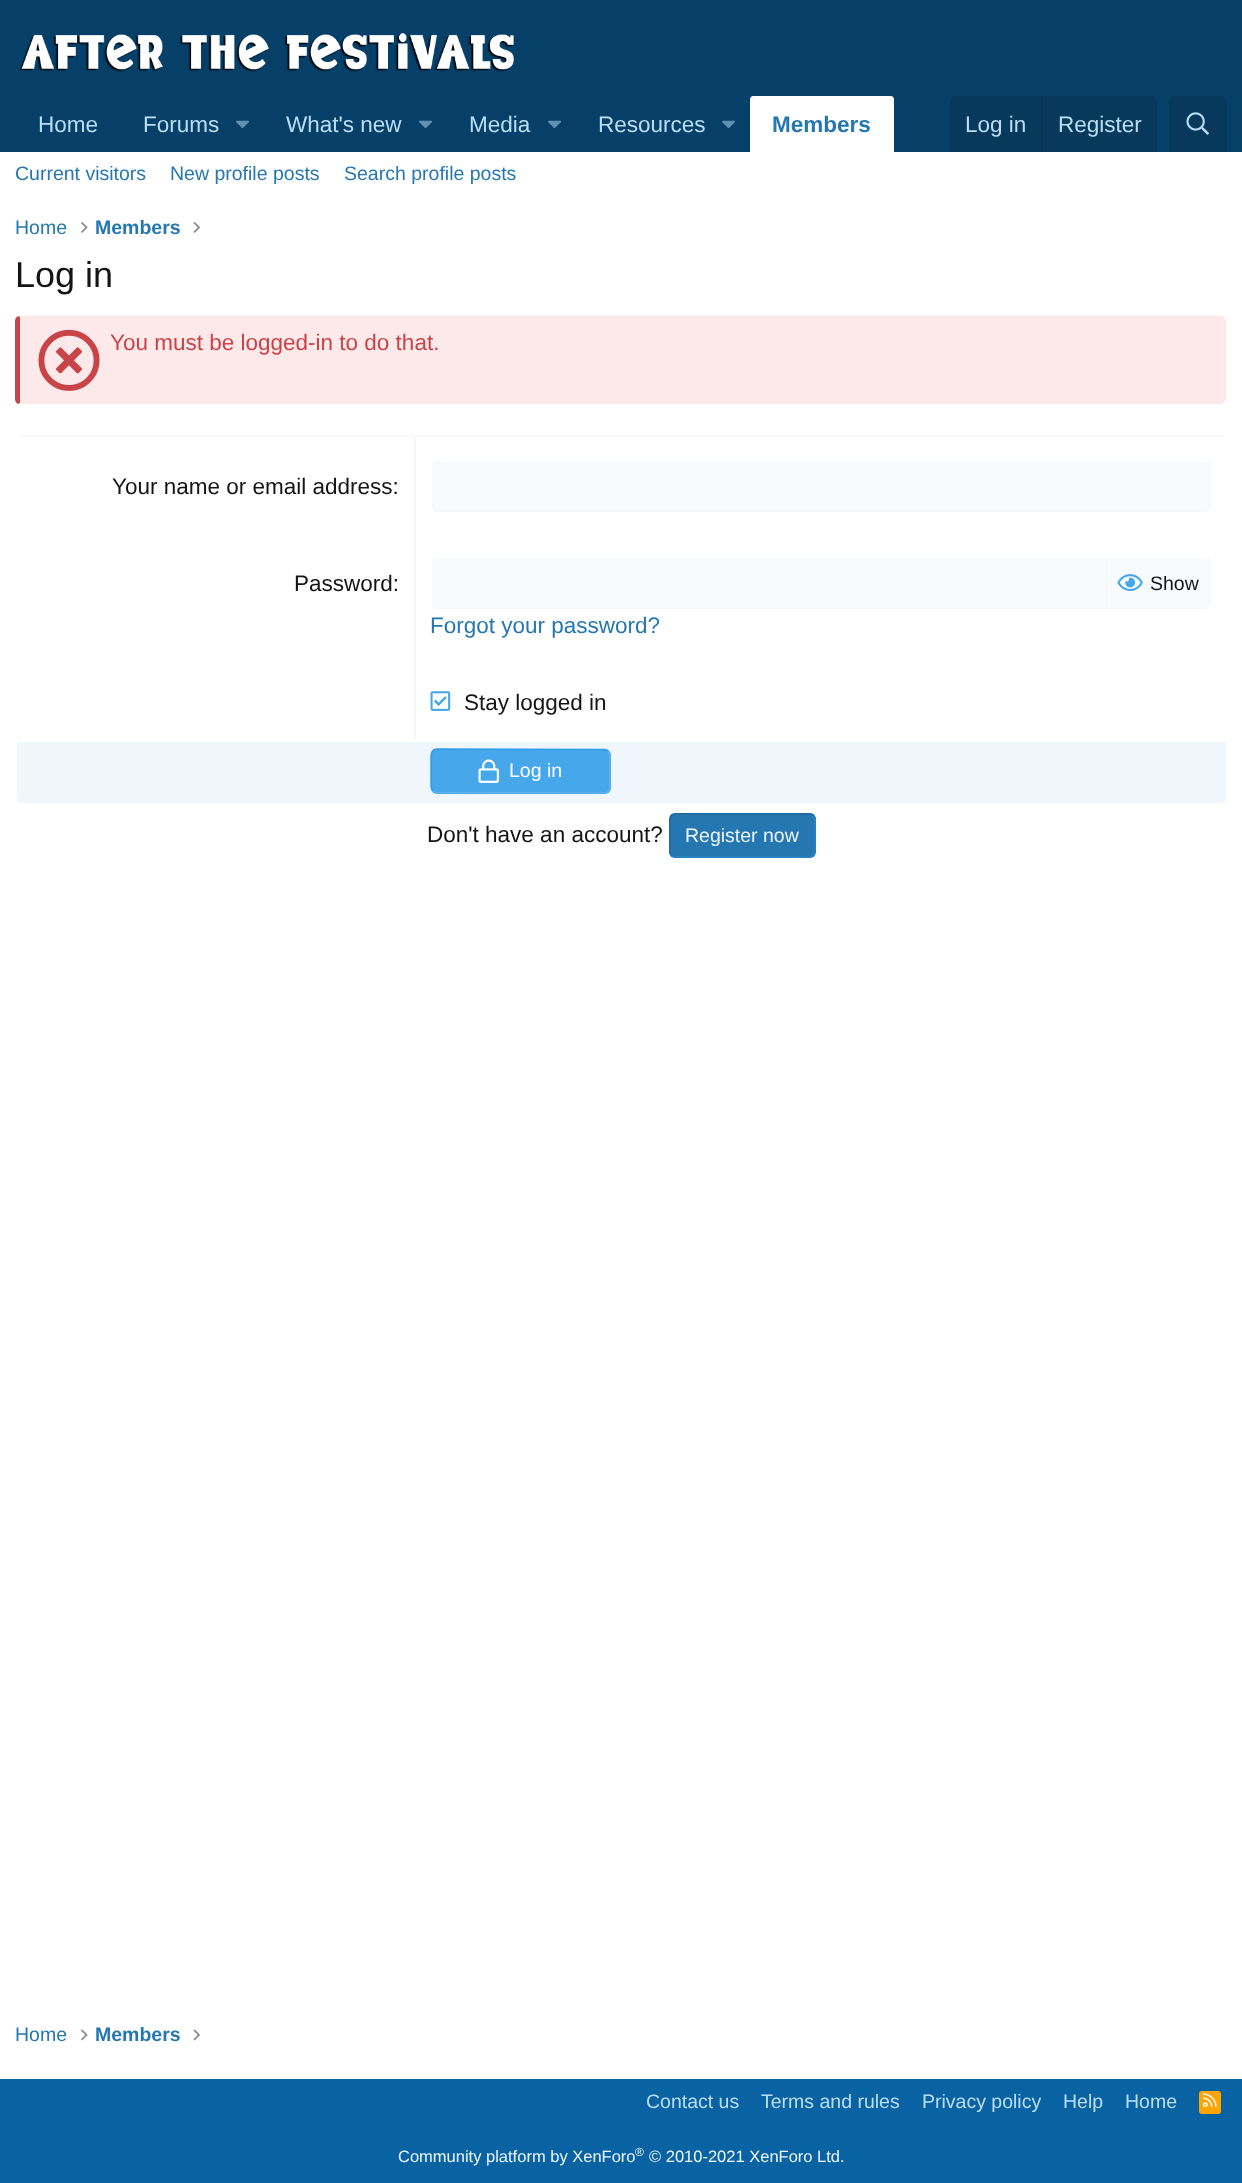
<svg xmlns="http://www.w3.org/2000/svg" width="1242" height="2183">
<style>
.a{font:22.5px Liberation Sans;fill:#bcdef5}
.b{font:bold 22.5px Liberation Sans;fill:#2577b1}
.c{font:19.5px Liberation Sans;fill:#2577b1}
.d{font:bold 19.5px Liberation Sans;fill:#2577b1}
.e{font:36px Liberation Sans;fill:#141414}
.f{font:22.5px Liberation Sans;fill:#c84448}
.g{font:22.5px Liberation Sans;fill:#141414}
.h{font:19.5px Liberation Sans;fill:#141414}
.i{font:22.5px Liberation Sans;fill:#2577b1}
.j{font:19.5px Liberation Sans;fill:#fff}
.k{font:19.5px Liberation Sans;fill:#edf6fd}
.l{font:19.5px Liberation Sans;fill:#bcdef5}
.m{font:16.5px Liberation Sans;fill:#edf6fd}
.n{font:12px Liberation Sans;fill:#edf6fd}
</style>
<rect width="100%" height="100%" fill="#fff"/>
<path fill="#064069" d="M0 0h1242v152H0z"/>
<image href="1.png" x="19" y="33" width="495" height="39"/>
<image href="2.png" x="236" y="120" width="13" height="9"/>
<image href="2.png" x="419" y="120" width="13" height="9"/>
<image href="2.png" x="548" y="120" width="13" height="9"/>
<image href="2.png" x="722" y="120" width="13" height="9"/>
<path fill="#fff" d="M753 96h138c1.5 0 3 1.5 3 3v53h-144v-53c0-1.5 1.5-3 3-3z"/>
<path fill="#08395c" d="M956 96h195c3.5 0 6 2.5 6 6v50h-207v-50c0-3.5 2.5-6 6-6z"/>
<path fill="#0a3351" d="M1041 96h2v56H1041z"/>
<path fill="#08395c" d="M1175 96h46c3.5 0 6 2.5 6 6v50h-58v-50c0-3.5 2.5-6 6-6z"/>
<image href="3.png" x="1186" y="112" width="23" height="23"/>
<image href="4.png" x="81" y="222" width="7" height="11"/>
<image href="5.png" x="193" y="222" width="7" height="11"/>
<path fill="#fde9e9" d="M21 316h1200c2 0 5 3 5 5v78c0 2-3 5-5 5h-1200c-1 0-1-3-1-5v-78c0-2 0-5 1-5z"/>
<path fill="#f7f7f7" d="M21 315l-3 1l2 1l1-1h1200l3 2l1-1c-1-1-3-2-4-2z"/>
<path fill="#fff" d="M1227 399v-79l-2-3l-1 1l2 3v78l-2 3l1 1c1-1 2-3 2-4z"/>
<path fill="#fff" d="M21 405h1200c1 0 3-1 4-2l-1-1l-3 2h-1200l-1-1l-2 1z"/>
<path fill="#c84448" d="M15 321v78c0 2 1 4 3 5l2-1v-86l-2-1c-2 1-3 3-3 5z"/>
<image href="6.png" x="38" y="329" width="62" height="62"/>
<path fill="none" stroke="#f7f7f7" stroke-width="1.5" d="M17.5 437.5c1-1 2-1.5 3.5-1.5h1200c1.5 0 2.5 .5 3.5 1.5"/>
<path fill="#f7f7f7" d="M414 437h2v303H414z"/>
<rect fill="#f7fbfe" x="431" y="459" width="780" height="53" rx="6"/>
<path fill="none" stroke="#f7f7f7" stroke-width="1.5" d="M1208 461.5c1 1 2 2 2 3.5v40.5c0 1.5-1 2.5-2 3.5c-1 1-2 2-3.5 2h-768c-1.5 0-2.5-1-3.5-2"/>
<path fill="none" stroke="#fff" stroke-width="1.5" d="M433 509c-1-1-2-2-2-3.5v-40.5c0-1.5 1-2.5 2-3.5c1-1 2-1.5 3.5-1.5h768c1.5 0 2.5 .5 3.5 1.5"/>
<path fill="#f7fbfe" d="M437 557h669v52h-669c-3.5 0-6-2.5-6-6v-40c0-3.5 2.5-6 6-6z"/>
<path fill="#fff" d="M436 558l-3 1l-1-1l2-2h672v2z"/>
<path fill="#f7f7f7" d="M1106 609v-1h-670l-3-2l-1 1c1 1 3 2 4 2z"/>
<path fill="#fff" d="M430 560l2-2l1 1c-1 1-1 2-1 3v41c0 1 0 2 1 3l-1 1l-2-2z"/>
<path fill="#f7fbfe" d="M1106 557h99c3.5 0 6 2.5 6 6v40c0 3.5-2.5 6-6 6h-99z"/>
<path fill="#fff" d="M1107 558l-1-2h101l2 2l-1 1c-1 0-2-1-4-1z"/>
<path fill="#f7f7f7" d="M1209 558c1 1 1 3 1 4v41c0 1 0 3-1 4l-1-1c1-1 1-2 1-3v-41c0-1 0-2-1-3z"/>
<path fill="#f7f7f7" d="M1106 609h99l4-2l-1-1l-3 2h-98z"/>
<path fill="#f7f7f7" d="M1107 558v50h-1v-51z"/>
<image href="7.png" x="1117" y="574" width="26" height="17"/>
<image href="8.png" x="430" y="691" width="21" height="20"/>
<path fill="#eff7fd" d="M17 740h1209v58c0 3-2 5-5 5h-1199c-3 0-5-2-5-5z"/>
<path fill="#fff" d="M17 740h1209v2H17z"/>
<rect fill="#47a7eb" x="431" y="749" width="180" height="45" rx="6"/>
<path fill="none" stroke="#5eb2ed" stroke-width="1.5" d="M608 751c2.5 2 2 6 2 9v22c0 4 .5 10.5-5.5 11l-168.5-.5l-3-1.5"/>
<path fill="none" stroke="#309ce8" stroke-width="1.5" d="M433 791c-2.5-2-2-6-2-9v-22c0-4-.5-10.5 5.5-11l168.5 .5l3 1.5"/>
<image href="9.png" x="478" y="759" width="21" height="24"/>
<rect fill="#2577b1" x="669" y="813" width="147" height="45" rx="6"/>
<path fill="none" stroke="#2985c6" stroke-width="1.5" d="M813.5 815.5c2.5 2 1.5 6 1.5 9v11c0 27 3 21.5-27.5 21.5h-112.5c-1.5 0-2.5-.5-3.5-1.5"/>
<path fill="none" stroke="#21699c" stroke-width="1.5" d="M671.5 855.5c-2.5-2-1.5-6-1.5-9v-11c0-27-3-21.5 27.5-21.5h112.5c1.5 0 2.5 .5 3.5 1.5"/>
<image href="10.png" x="81" y="2029" width="7" height="12"/>
<image href="11.png" x="193" y="2029" width="7" height="12"/>
<path fill="#0963a3" d="M0 2079h1242v104H0z"/>
<rect fill="#ffa500" x="1199" y="2091" width="22" height="23" rx="3"/>
<image href="12.png" x="1203" y="2093" width="14" height="14"/>
<text class="a" x="38" y="132">Home</text>
<text class="a" x="143" y="132">Forums</text>
<text class="a" x="286" y="132">What's new</text>
<text class="a" x="469" y="132">Media</text>
<text class="a" x="598" y="132">Resources</text>
<text class="b" x="772" y="132">Members</text>
<text class="a" x="965" y="132">Log in</text>
<text class="a" x="1058" y="132">Register</text>
<text class="c" x="15" y="180">Current visitors</text>
<text class="c" x="170" y="180">New profile posts</text>
<text class="c" x="344" y="180">Search profile posts</text>
<text class="c" x="15" y="234">Home</text>
<text class="d" x="95" y="234">Members</text>
<text class="e" x="15" y="287">Log in</text>
<text class="f" x="110" y="350">You must be logged-in to do that.</text>
<text class="g" x="112" y="494">Your name or email address:</text>
<text class="g" x="294" y="591">Password:</text>
<text class="h" x="1150" y="590">Show</text>
<text class="i" x="430" y="633">Forgot your password?</text>
<text class="g" x="464" y="710">Stay logged in</text>
<text class="j" x="509" y="777">Log in</text>
<text class="g" x="427" y="842">Don't have an account?</text>
<text class="k" x="685" y="842">Register now</text>
<text class="c" x="15" y="2041">Home</text>
<text class="d" x="95" y="2041">Members</text>
<text class="l" x="646" y="2108">Contact us</text>
<text class="l" x="761" y="2108">Terms and rules</text>
<text class="l" x="922" y="2108">Privacy policy</text>
<text class="l" x="1063" y="2108">Help</text>
<text class="l" x="1125" y="2108">Home</text>
<text class="m" x="398" y="2162">Community platform by XenForo</text>
<text class="n" x="635" y="2156">®</text>
<text class="m" x="649" y="2162">© 2010-2021 XenForo Ltd.</text>
</svg>
